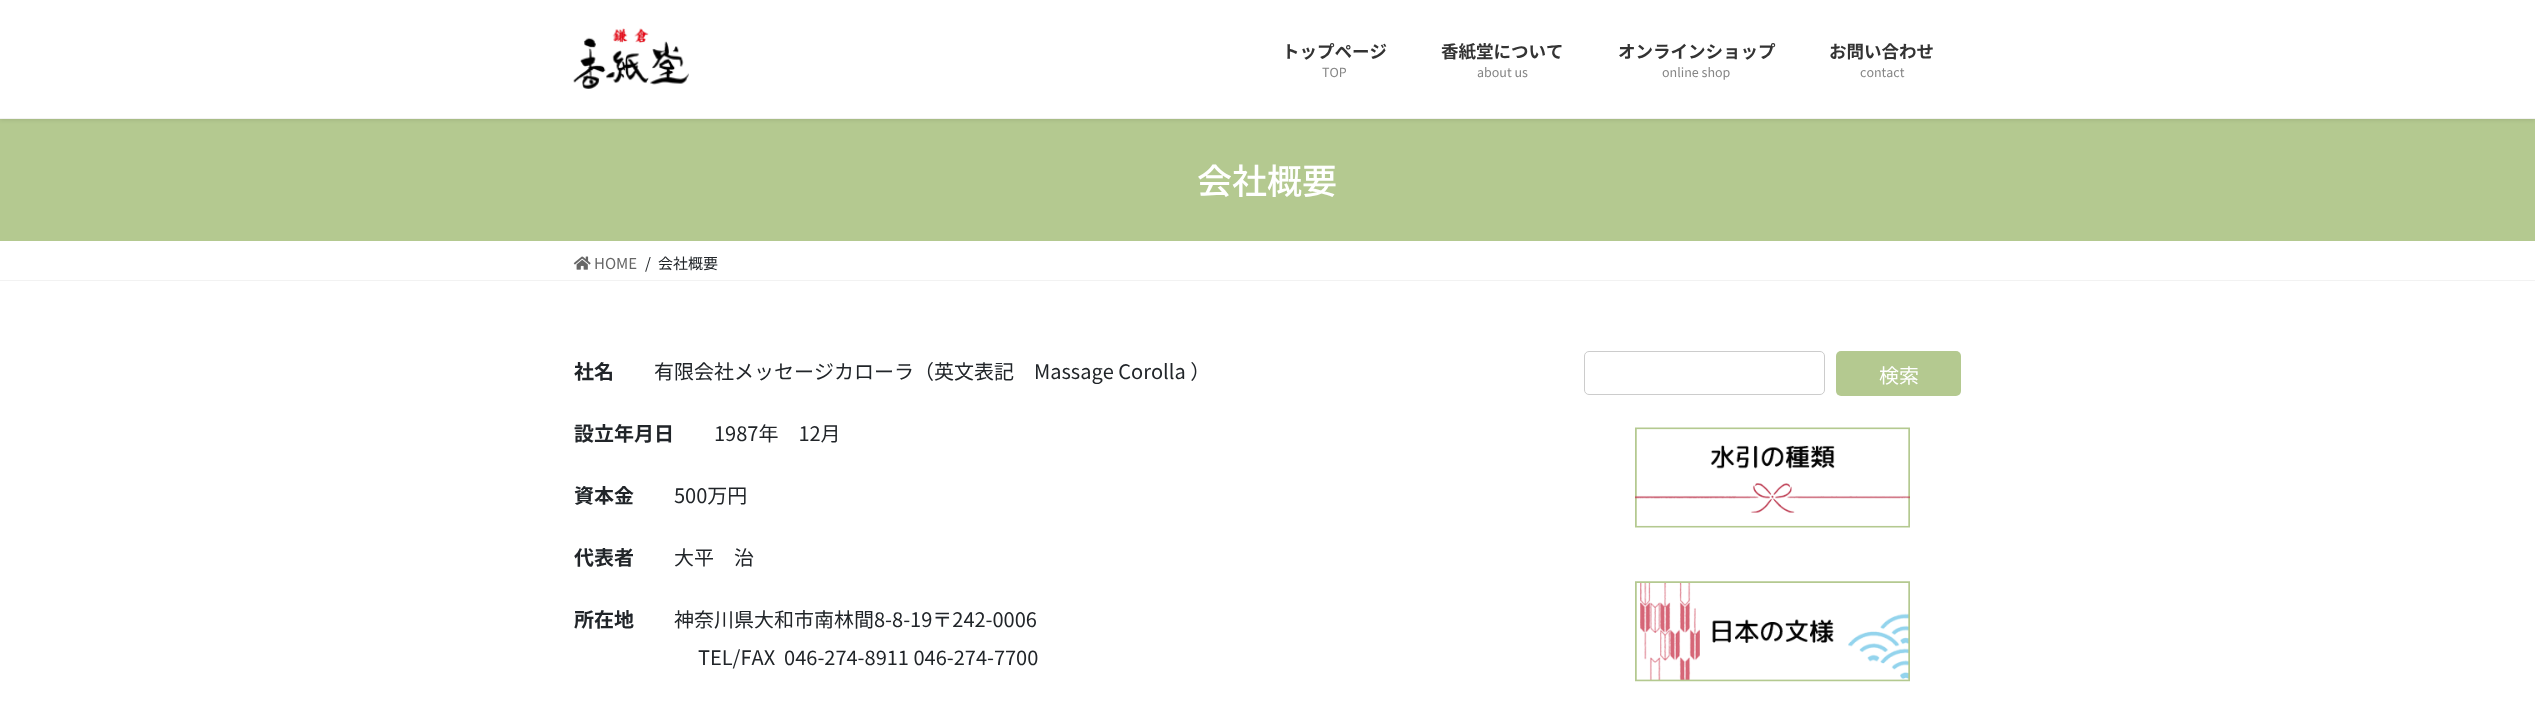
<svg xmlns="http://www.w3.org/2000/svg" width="2535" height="717">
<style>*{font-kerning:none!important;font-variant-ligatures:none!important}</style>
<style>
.a{font:bold 17.5px Noto Sans JP;fill:#333}
.b{font:12.5px Noto Sans JP;fill:#858585}
.c{font:500 35px Noto Sans JP;fill:#fff}
.d{font:15px Noto Sans JP;fill:#666}
.e{font:15px Noto Sans JP;fill:#212529}
.f{font:bold 20px Noto Sans JP;fill:#212529}
.g{font:20px Noto Sans JP;fill:#212529}
.h{font:20px Noto Sans JP;fill:#fff}
</style>
<rect width="100%" height="100%" fill="#fff"/>
<path fill="#b4c990" d="M0 119h2535v122H0z"/>
<path fill="#0000001a" filter="blur(2px)" d="M0 1h2535v119H0z"/>
<path fill="#fff" d="M0 0h2535v118H0z"/>
<path fill="#f2f2f2" d="M0 118h2535v1H0z"/>
<image href="1.png" x="573" y="28" width="116" height="61"/>
<path fill="#f2f2f2" d="M0 280h2535v1H0z"/>
<image href="2.png" x="573" y="256" width="18" height="14"/>
<rect fill="none" stroke="#ccc" x="1584.5" y="351.5" width="240" height="43" rx="4.5"/>
<rect fill="#b4c990" x="1836" y="351" width="125" height="45" rx="5"/>
<image href="3.png" x="1635" y="427" width="275" height="101"/>
<image href="4.png" x="1635" y="581" width="275" height="101"/>
<text class="a" x="1282" y="58">トップページ</text>
<text class="b" x="1322" y="77">TOP</text>
<text class="a" x="1441" y="58">香紙堂について</text>
<text class="b" x="1477" y="77">about us</text>
<text class="a" x="1618" y="58">オンラインショップ</text>
<text class="b" x="1662" y="77">online shop</text>
<text class="a" x="1829" y="58">お問い合わせ</text>
<text class="b" x="1860" y="77">contact</text>
<text class="c" x="1197" y="194">会社概要</text>
<text class="d" x="594" y="269">HOME</text>
<text class="e" x="645" y="269">/</text>
<text class="e" x="658" y="269">会社概要</text>
<text class="f" x="574" y="379">社名</text>
<text class="g" x="654" y="379">有限会社メッセージカローラ（英文表記　Massage Corolla ）</text>
<text class="f" x="574" y="441">設立年月日</text>
<text class="g" x="714" y="441">1987年　12月</text>
<text class="f" x="574" y="503">資本金</text>
<text class="g" x="674" y="503">500万円</text>
<text class="f" x="574" y="565">代表者</text>
<text class="g" x="674" y="565">大平　治</text>
<text class="f" x="574" y="627">所在地</text>
<text class="g" x="674" y="627">神奈川県大和市南林間8-8-19〒242-0006</text>
<text class="g" xml:space="preserve" x="698" y="665">TEL/FAX  046-274-8911 046-274-7700</text>
<text class="h" x="1879" y="383">検索</text>
</svg>
